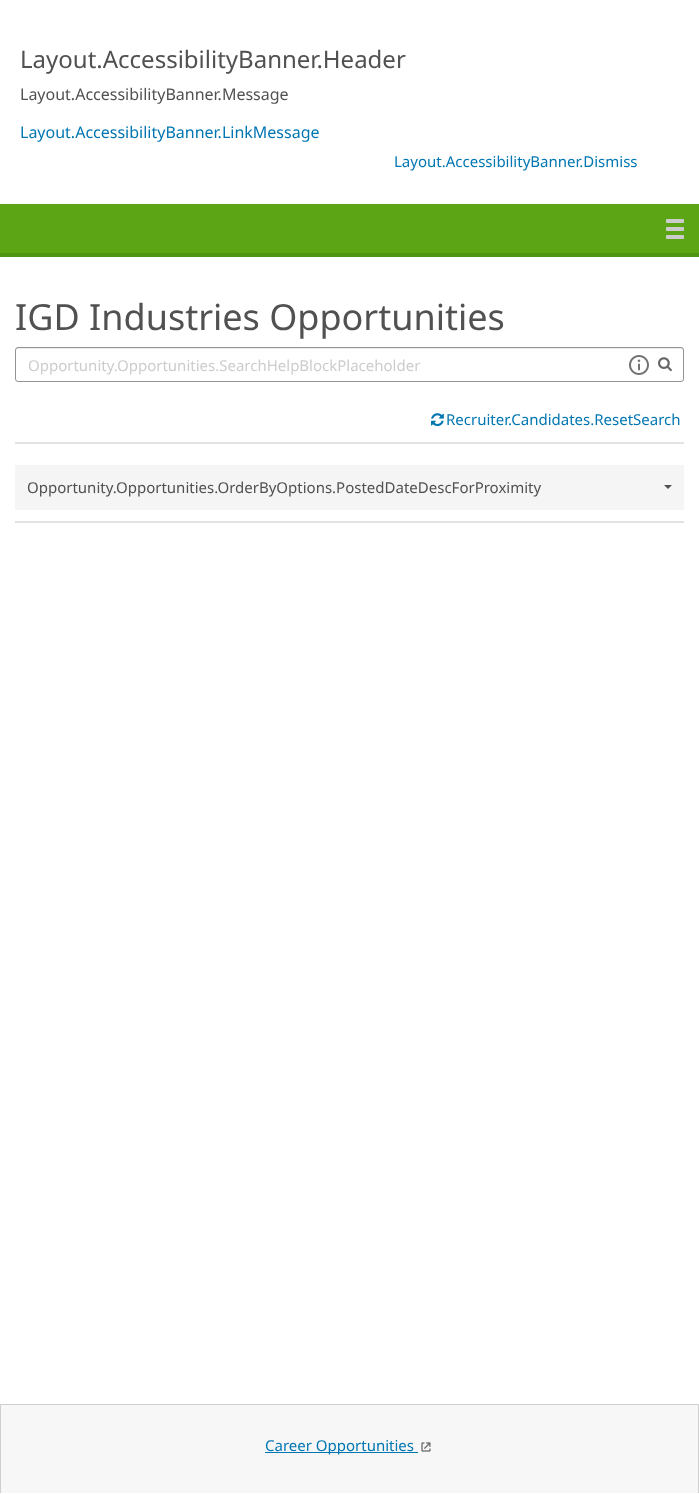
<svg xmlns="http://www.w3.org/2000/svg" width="699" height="1494">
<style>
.a{font:24px Noto Sans;fill:#515151}
.b{font:16px Noto Sans;fill:#515151}
.c{font:16px Noto Sans;fill:#0176b2}
.d{font:15px Noto Sans;fill:#0176b2}
.e{font:36px Noto Sans;fill:#515151}
.f{font:15px Noto Sans;fill:#ccc}
.g{font:15px Noto Sans;fill:#515151}
</style>
<rect width="100%" height="100%" fill="#fff"/>
<path fill="#5ca616" d="M0 204h699v49H0z"/>
<path fill="#4b9510" d="M0 253h699v4H0z"/>
<rect fill="#ccc" x="666" y="219" width="18" height="4" rx="1"/>
<rect fill="#ccc" x="666" y="227" width="18" height="4" rx="1"/>
<rect fill="#ccc" x="666" y="235" width="18" height="4" rx="1"/>
<path fill="#ececec" d="M18 349h663c1 0 2 1 2 2c0-1 0-3-2-3h-663c-2 0-2 2-2 3c0-1 1-2 2-2z"/>
<rect fill="none" stroke="#0000006b" x="15.5" y="347.5" width="668" height="34" rx="2.5"/>
<image href="1.png" x="629" y="355" width="20" height="20"/>
<image href="2.png" x="658" y="357" width="14" height="15"/>
<image href="3.png" x="431" y="413" width="13" height="14"/>
<path fill="#e3e3e3" d="M15 442h669v2H15z"/>
<path fill="#e3e3e3" d="M15 521h669v2H15z"/>
<path fill="#f5f5f5" d="M15 465h669v45H15z"/>
<path fill="#515151" d="M664 485h8l-4 4z"/>
<path fill="#f7f7f7" d="M1 1405h697v88H1z"/>
<path fill="#cfcfcf" d="M0 1404h699v1H0z"/>
<path fill="#cfcfcf" d="M698 1404h1v89H698z"/>
<path fill="#cfcfcf" d="M0 1404h1v89H0z"/>
<path fill="#0176b2" d="M265 1452h153v1H265z"/>
<image href="4.png" x="421" y="1442" width="10" height="10"/>
<text class="a" x="20" y="68">Layout.AccessibilityBanner.Header</text>
<text class="b" x="20" y="100">Layout.AccessibilityBanner.Message</text>
<text class="c" x="20" y="138">Layout.AccessibilityBanner.LinkMessage</text>
<text class="d" x="394" y="167">Layout.AccessibilityBanner.Dismiss</text>
<text class="e" x="15" y="330">IGD Industries Opportunities</text>
<text class="f" x="28" y="371">Opportunity.Opportunities.SearchHelpBlockPlaceholder</text>
<text class="d" x="446" y="425">Recruiter.Candidates.ResetSearch</text>
<text class="g" x="27" y="493">Opportunity.Opportunities.OrderByOptions.PostedDateDescForProximity</text>
<text class="d" x="265" y="1451">Career Opportunities</text>
</svg>
